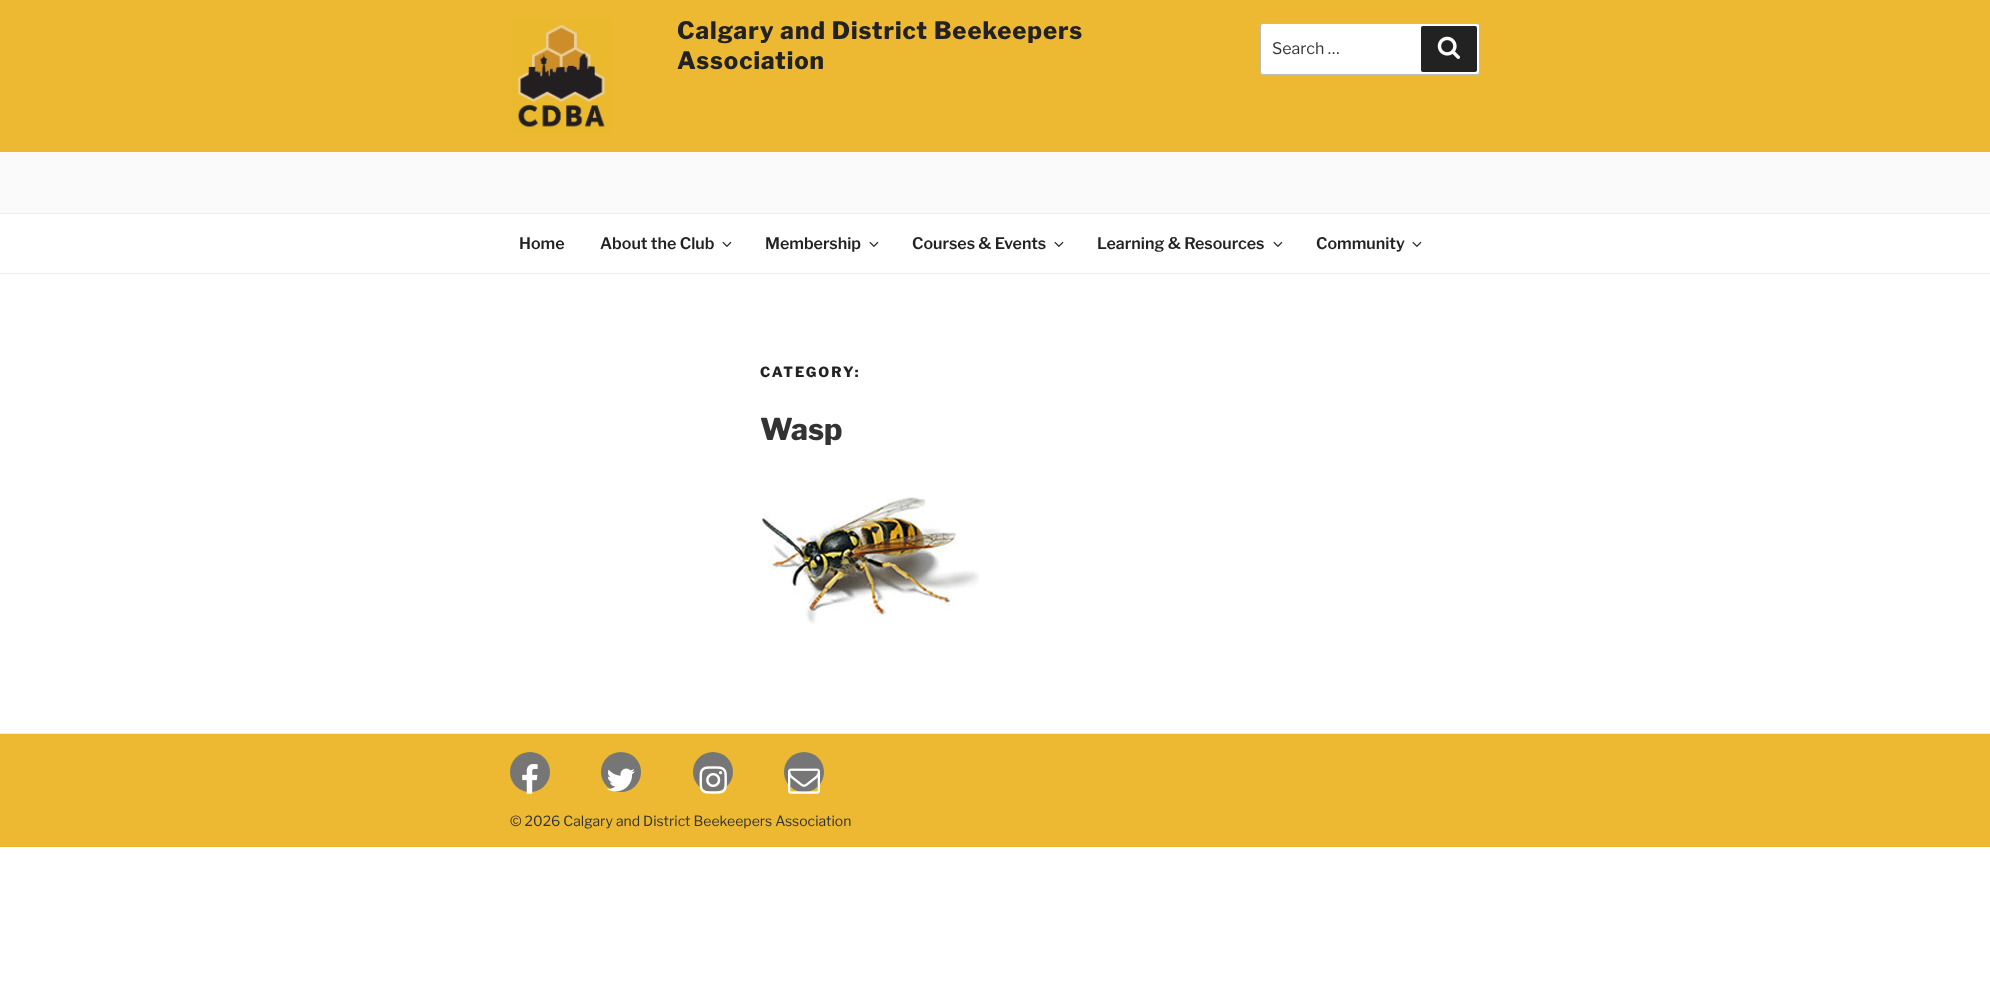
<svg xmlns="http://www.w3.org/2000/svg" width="1990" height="993">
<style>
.a{font:100 24px 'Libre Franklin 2';letter-spacing:0.95px;fill:#222}
.b{font:100 16px 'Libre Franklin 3';fill:#333}
.c{font:100 16px Libre Franklin;fill:#222}
.d{font:100 14px 'Libre Franklin 2';letter-spacing:2px;fill:#222}
.e{font:100 30px 'Libre Franklin 2';fill:#333}
.f{font:100 14px 'Libre Franklin 3';fill:#333}
</style>
<rect width="100%" height="100%" fill="#fff"/>
<path fill="#fafafa" d="M0 152h1990v61H0z"/>
<path fill="#edb933" d="M0 0h1990v152H0z"/>
<image href="1.png" x="511" y="17" width="102" height="118"/>
<rect fill="#fff" stroke="#bbb" x="1260.5" y="23.5" width="219" height="51" rx="2.5"/>
<rect fill="#222" x="1421" y="26" width="56" height="46" rx="2"/>
<image href="2.png" x="1437" y="36" width="23" height="23"/>
<path fill="#eee" d="M0 213h1990v1H0z"/>
<path fill="#eee" d="M0 273h1990v1H0z"/>
<image href="3.png" x="722" y="241" width="10" height="6"/>
<image href="3.png" x="869" y="241" width="10" height="6"/>
<image href="3.png" x="1054" y="241" width="10" height="6"/>
<image href="3.png" x="1273" y="241" width="10" height="6"/>
<image href="3.png" x="1412" y="241" width="10" height="6"/>
<image href="4.png" x="760" y="497" width="219" height="127"/>
<path fill="#edb933" d="M0 734h1990v113H0z"/>
<path fill="#eee" d="M0 733h1990v1H0z"/>
<circle fill="#767676" cx="530" cy="772" r="20"/>
<image href="5.png" x="522" y="764" width="16" height="30"/>
<circle fill="#767676" cx="621" cy="772" r="20"/>
<image href="6.png" x="607" y="768" width="28" height="24"/>
<circle fill="#767676" cx="713" cy="772" r="20"/>
<image href="7.png" x="699" y="766" width="28" height="28"/>
<circle fill="#767676" cx="804" cy="772" r="20"/>
<image href="8.png" x="788" y="768" width="32" height="26"/>
<text class="a" x="677" y="39">Calgary and District Beekeepers</text>
<text class="a" x="677" y="69">Association</text>
<text class="b" x="1272" y="54">Search …</text>
<text class="c" x="519" y="249">Home</text>
<text class="c" x="600" y="249">About the Club</text>
<text class="c" x="765" y="249">Membership</text>
<text class="c" x="912" y="249">Courses &amp; Events</text>
<text class="c" x="1097" y="249">Learning &amp; Resources</text>
<text class="c" x="1316" y="249">Community</text>
<text class="d" x="760" y="377">CATEGORY:</text>
<text class="e" x="760" y="440">Wasp</text>
<text class="f" x="510" y="826">© 2026 Calgary and District Beekeepers Association</text>
</svg>
